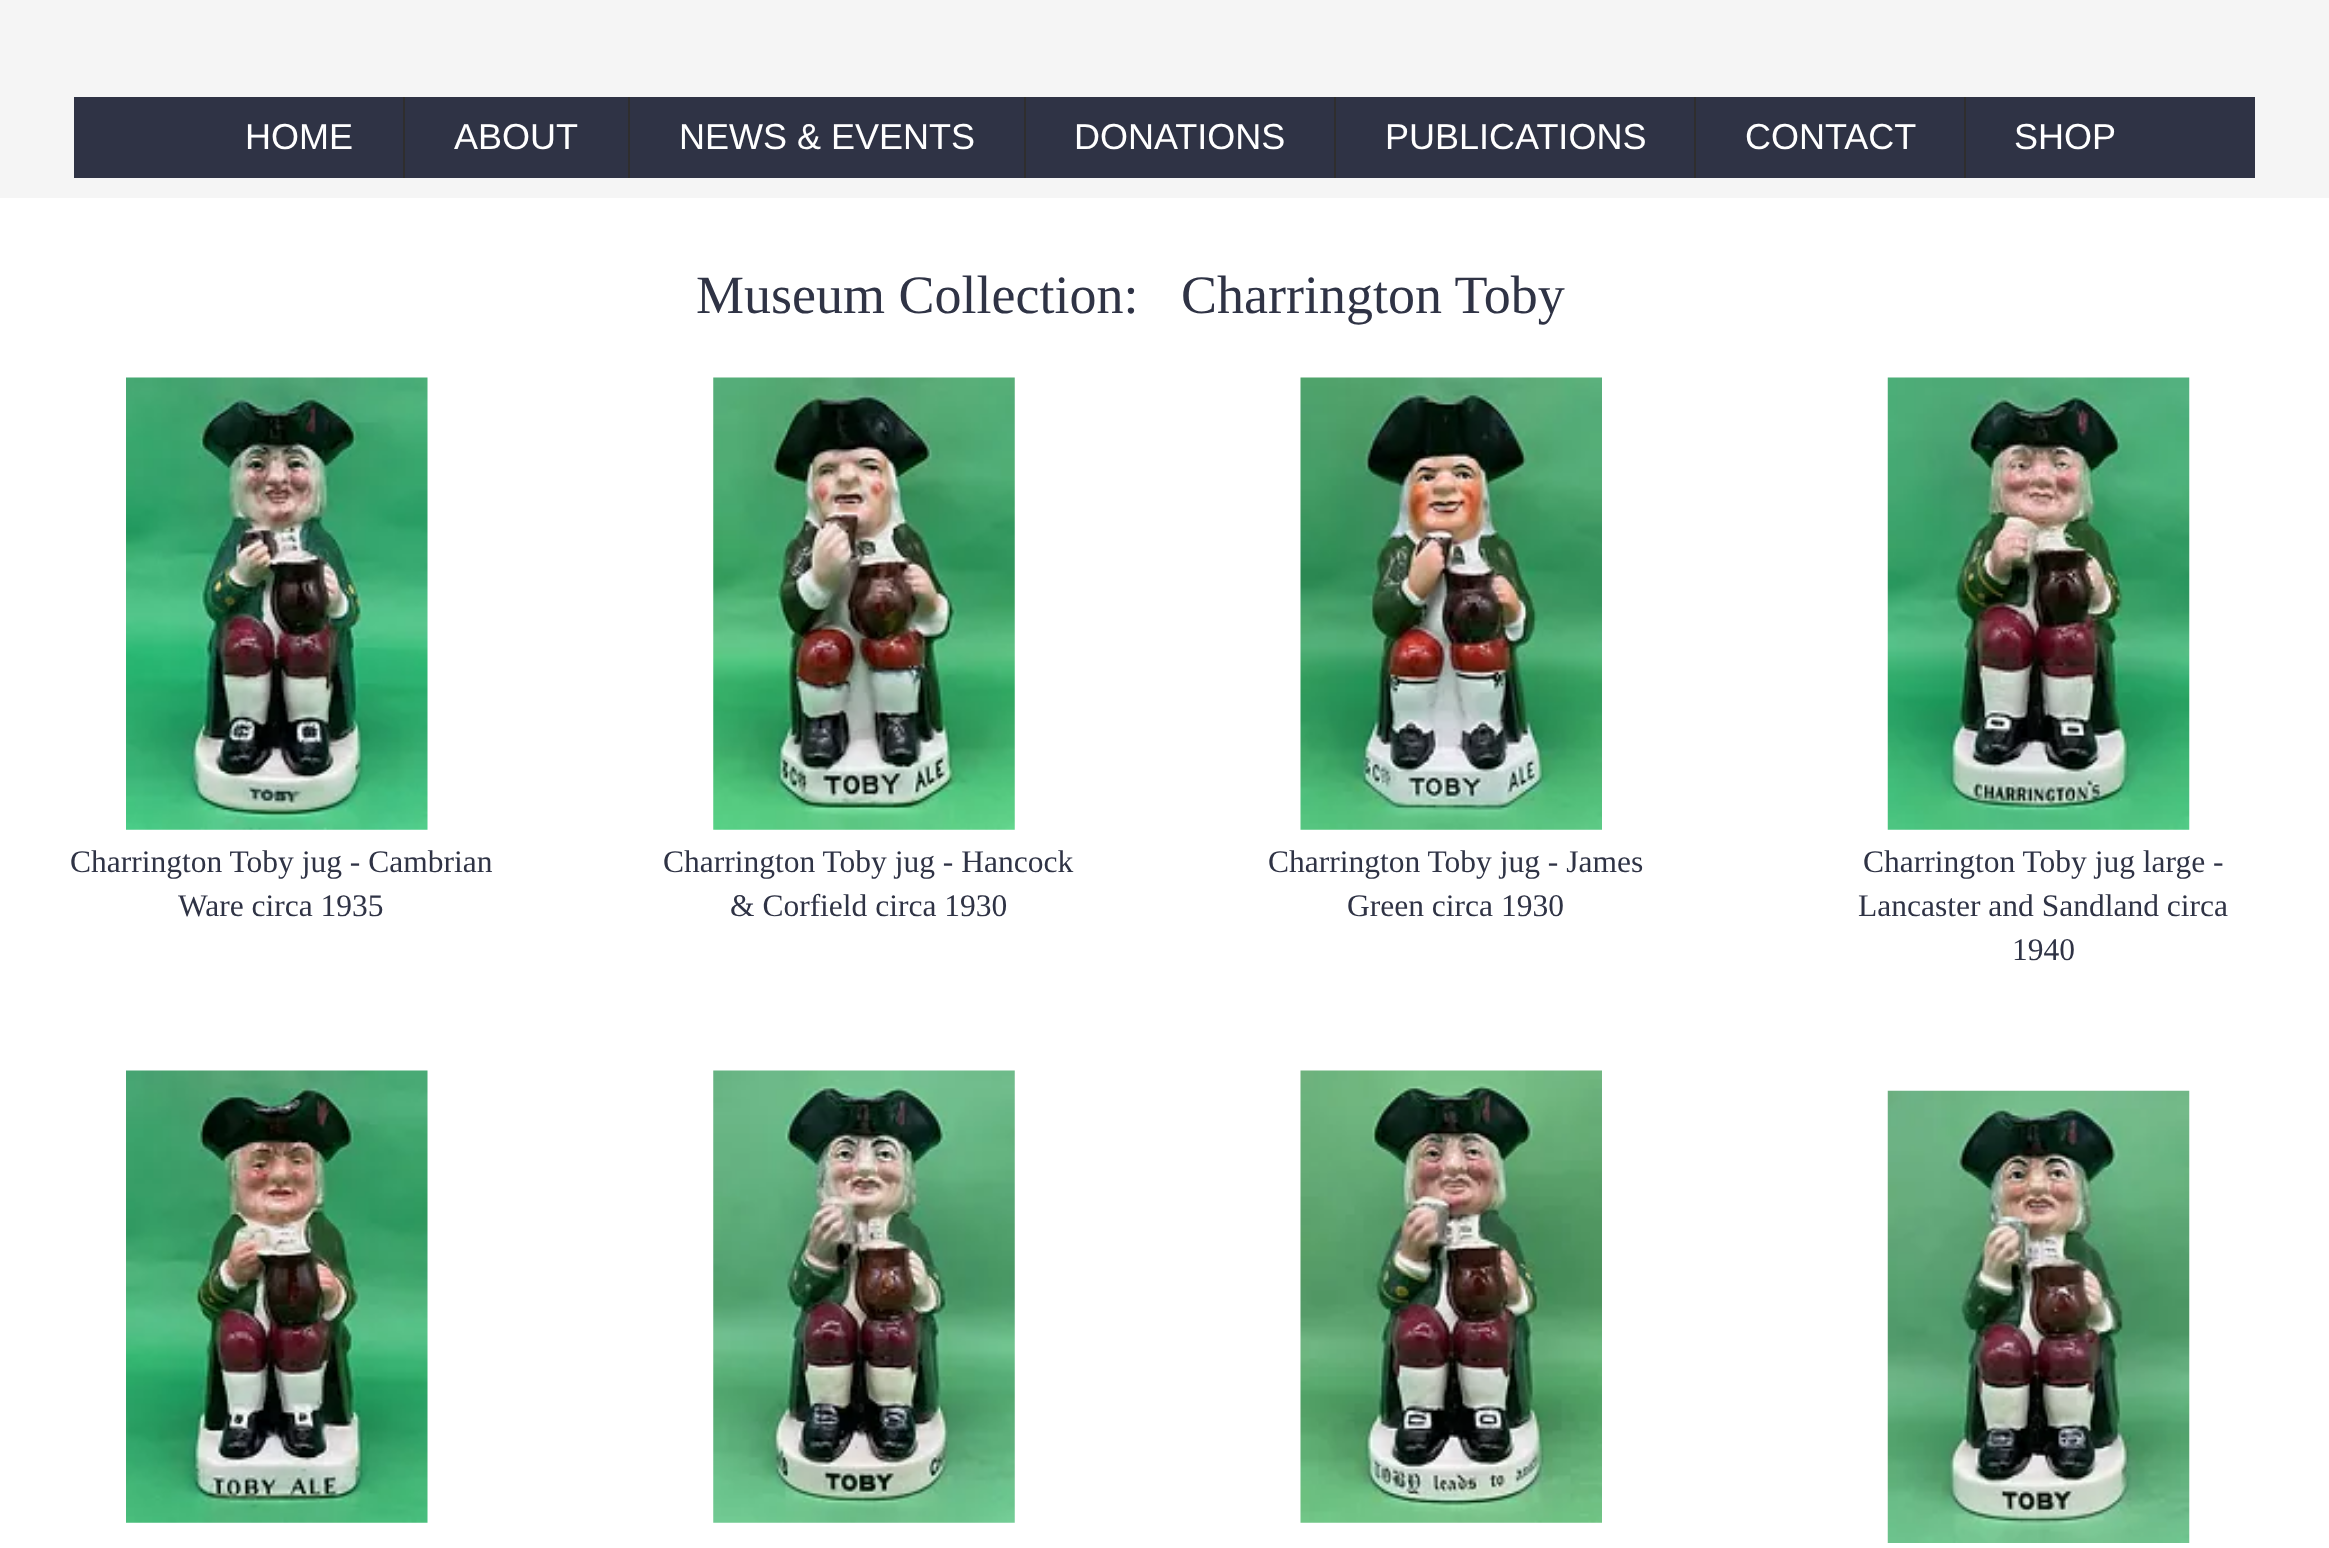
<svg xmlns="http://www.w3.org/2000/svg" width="2329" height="1548">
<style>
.a{font:36px Liberation Sans;fill:#fff}
.b{font:54px Liberation Serif;fill:#2f3345}
.c{font:31.5px Liberation Serif;fill:#2f3345}
</style>
<rect width="100%" height="100%" fill="#fff"/>
<path fill="#f5f5f5" d="M0 0h2329v198H0z"/>
<path fill="#2f3345" d="M74 97h2181v81H74z"/>
<path fill="#2f2e2e" d="M403 97h2v81H403z"/>
<path fill="#2f2e2e" d="M628 97h2v81H628z"/>
<path fill="#2f2e2e" d="M1024 97h2v81H1024z"/>
<path fill="#2f2e2e" d="M1334 97h2v81H1334z"/>
<path fill="#2f2e2e" d="M1694 97h2v81H1694z"/>
<path fill="#2f2e2e" d="M1964 97h2v81H1964z"/>
<image href="1.png" x="126" y="377" width="302" height="453"/>
<image href="2.png" x="126" y="1070" width="302" height="453"/>
<image href="3.png" x="713" y="377" width="302" height="453"/>
<image href="4.png" x="713" y="1070" width="302" height="453"/>
<image href="5.png" x="1300" y="377" width="302" height="453"/>
<image href="6.png" x="1300" y="1070" width="302" height="453"/>
<image href="7.png" x="1887" y="377" width="303" height="453"/>
<image href="8.png" x="1887" y="1090" width="303" height="453"/>
<text class="a" x="245" y="149">HOME</text>
<text class="a" x="454" y="149">ABOUT</text>
<text class="a" x="679" y="149">NEWS &amp; EVENTS</text>
<text class="a" x="1074" y="149">DONATIONS</text>
<text class="a" x="1385" y="149">PUBLICATIONS</text>
<text class="a" x="1745" y="149">CONTACT</text>
<text class="a" x="2014" y="149">SHOP</text>
<text class="b" x="696" y="313">Museum Collection:</text>
<text class="b" x="1181" y="313">Charrington Toby</text>
<text class="c" x="70" y="872">Charrington Toby jug - Cambrian</text>
<text class="c" x="178" y="916">Ware circa 1935</text>
<text class="c" x="663" y="872">Charrington Toby jug - Hancock</text>
<text class="c" x="730" y="916">&amp; Corfield circa 1930</text>
<text class="c" x="1268" y="872">Charrington Toby jug - James</text>
<text class="c" x="1347" y="916">Green circa 1930</text>
<text class="c" x="1863" y="872">Charrington Toby jug large -</text>
<text class="c" x="1858" y="916">Lancaster and Sandland circa</text>
<text class="c" x="2012" y="960">1940</text>
</svg>
